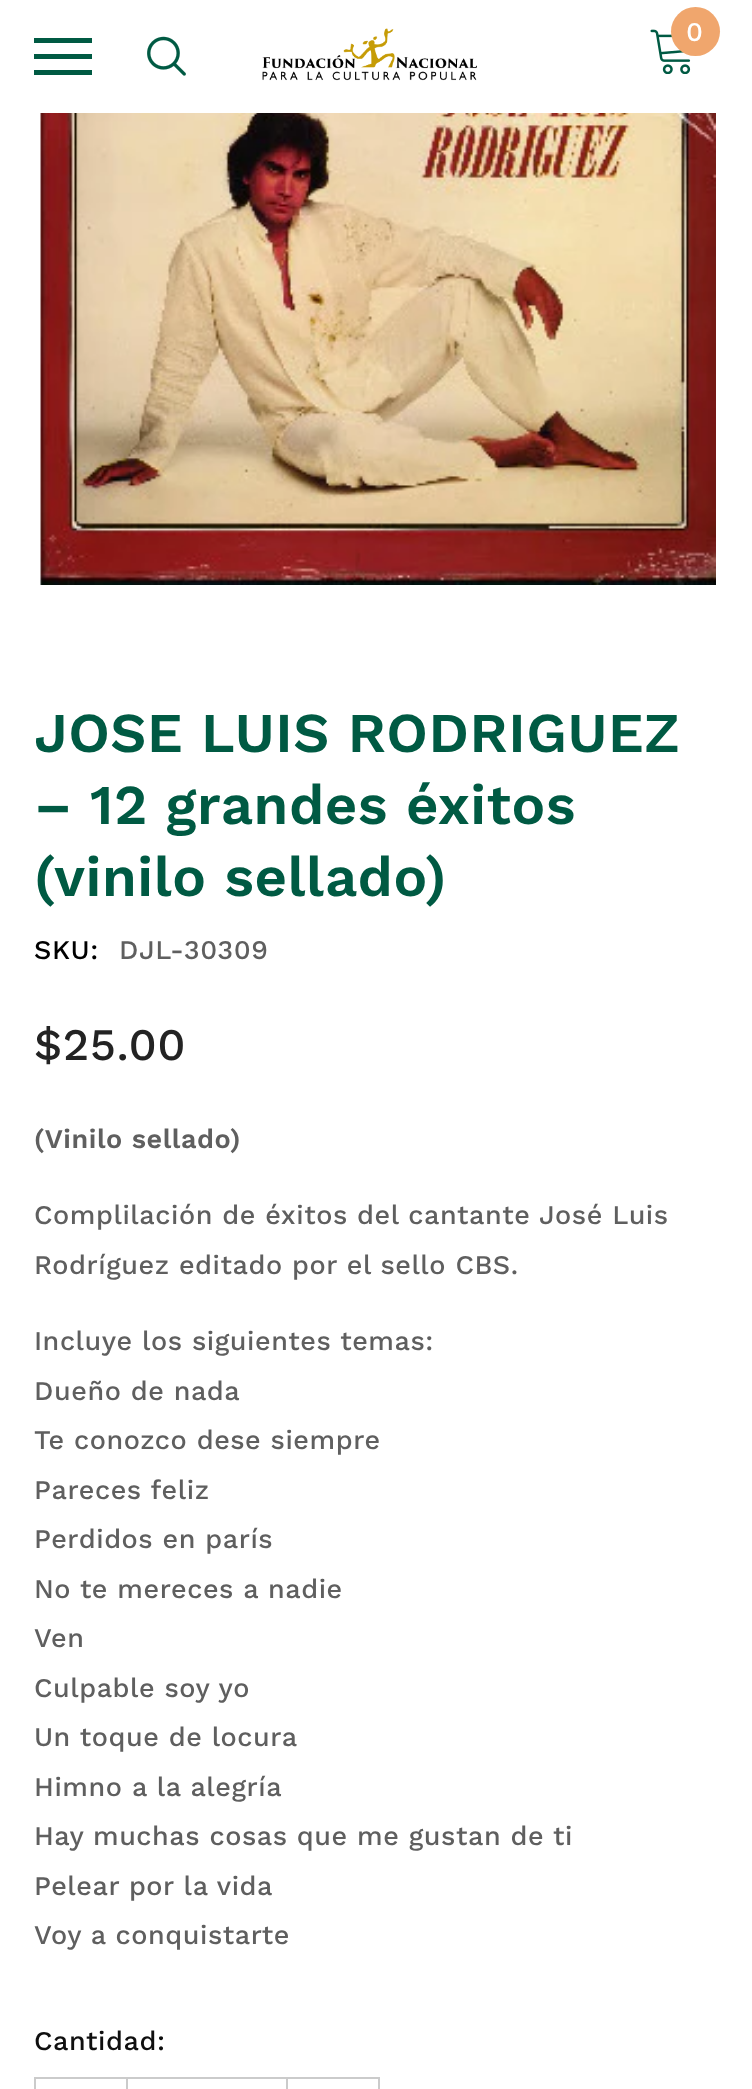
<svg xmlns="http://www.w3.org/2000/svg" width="752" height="2089">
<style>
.a{font:500 27px Work Sans;letter-spacing:0.55px;fill:#fff}
.b{font:600 56.25px Work Sans;letter-spacing:0.55px;fill:#005a43}
.c{font:500 27px Work Sans;letter-spacing:0.55px;fill:#000}
.d{font:500 27px Work Sans;letter-spacing:0.55px;fill:#5f5f5f}
.e{font:500 45px Work Sans;letter-spacing:0.55px;fill:#232323}
.f{font:600 27px Work Sans;letter-spacing:0.55px;fill:#5f5f5f}
.g{font:500 27px Work Sans;letter-spacing:0.55px;fill:#0f0f0f}
</style>
<rect width="100%" height="100%" fill="#fff"/>
<path fill="#005a43" d="M34 54h58v5H34z"/>
<path fill="#005a43" d="M34 38h58v5H34z"/>
<path fill="#005a43" d="M34 70h58v5H34z"/>
<image href="1.png" x="147" y="36" width="39" height="40"/>
<image href="2.png" x="262" y="28" width="215" height="53"/>
<image href="3.png" x="650" y="29" width="41" height="45"/>
<circle fill="#f0a66d" cx="695.5" cy="31.5" r="24.5"/>
<image href="4.png" x="40" y="113" width="676" height="472"/>
<path fill="none" stroke="#cbcbcb" stroke-width="2" d="M35 2078h344v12H35z"/>
<path fill="#cbcbcb" d="M126 2079h2v10H126z"/>
<path fill="#cbcbcb" d="M286 2079h2v10H286z"/>
<text class="a" x="686" y="41">0</text>
<text class="b" x="34" y="752">JOSE LUIS RODRIGUEZ</text>
<text class="b" x="34" y="824">–</text>
<text class="b" x="90" y="824">12 grandes éxitos</text>
<text class="b" x="34" y="896">(vinilo sellado)</text>
<text class="c" x="34" y="959">SKU:</text>
<text class="d" x="119" y="959">DJL-30309</text>
<text class="e" x="34" y="1060">$25.00</text>
<text class="f" x="34" y="1148">(Vinilo sellado)</text>
<text class="d" x="34" y="1224">Complilación de éxitos del cantante José Luis</text>
<text class="d" x="34" y="1274">Rodríguez editado por el sello CBS.</text>
<text class="d" x="34" y="1350">Incluye los siguientes temas:</text>
<text class="d" x="34" y="1400">Dueño de nada</text>
<text class="d" x="34" y="1449">Te conozco dese siempre</text>
<text class="d" x="34" y="1499">Pareces feliz</text>
<text class="d" x="34" y="1548">Perdidos en parís</text>
<text class="d" x="34" y="1598">No te mereces a nadie</text>
<text class="d" x="34" y="1647">Ven</text>
<text class="d" x="34" y="1697">Culpable soy yo</text>
<text class="d" x="34" y="1746">Un toque de locura</text>
<text class="d" x="34" y="1796">Himno a la alegría</text>
<text class="d" x="34" y="1845">Hay muchas cosas que me gustan de ti</text>
<text class="d" x="34" y="1895">Pelear por la vida</text>
<text class="d" x="34" y="1944">Voy a conquistarte</text>
<text class="g" x="34" y="2050">Cantidad:</text>
</svg>
